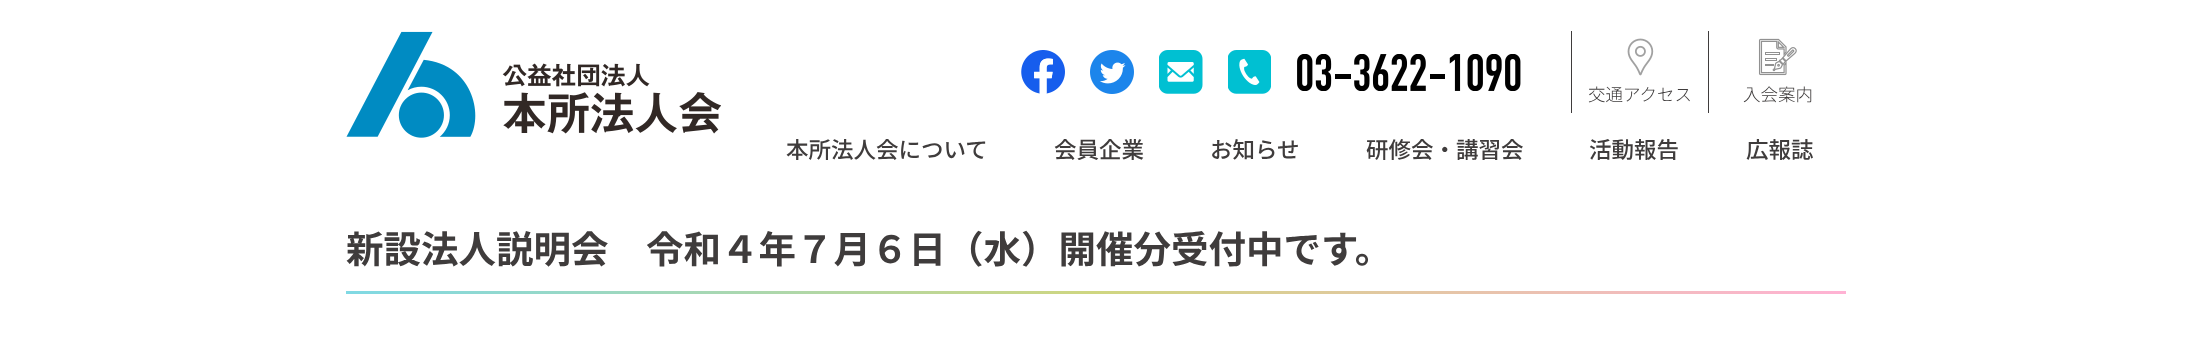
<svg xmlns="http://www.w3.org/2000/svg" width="2192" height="344">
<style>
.a{font:300 17.5px Noto Sans JP;fill:#3f3c3c}
.b{font:500 22.5px Noto Sans JP;fill:#3f3c3c}
.c{font:bold 37.5px Noto Sans JP;fill:#3f3c3c}
</style>
<defs>
<linearGradient id="g1" gradientUnits="userSpaceOnUse" x1="346" y1="293" x2="1846" y2="292"><stop offset="0" stop-color="#80d9e4"/><stop offset="0.5" stop-color="#cfd680"/><stop offset="1" stop-color="#ffb2d4"/></linearGradient>
</defs>
<rect width="100%" height="100%" fill="#fff"/>
<image href="1.png" x="346" y="31" width="375" height="107"/>
<image href="2.png" x="1021" y="50" width="44" height="44"/>
<image href="3.png" x="1090" y="50" width="44" height="44"/>
<image href="4.png" x="1159" y="50" width="44" height="44"/>
<image href="5.png" x="1228" y="50" width="43" height="44"/>
<image href="6.png" x="1297" y="54" width="224" height="37"/>
<path fill="#3f3c3c" d="M1708 31h1v82H1708z"/>
<path fill="#3f3c3c" d="M1571 31h1v82H1571z"/>
<image href="7.png" x="1627" y="38" width="27" height="38"/>
<image href="8.png" x="1758" y="38" width="39" height="38"/>
<path fill="url(#g1)" d="M346 291h1500v3H346z"/>
<text class="a" x="1588" y="101">交通アクセス</text>
<text class="a" x="1743" y="101">入会案内</text>
<text class="b" x="786" y="158">本所法人会について</text>
<text class="b" x="1054" y="158">会員企業</text>
<text class="b" x="1210" y="158">お知らせ</text>
<text class="b" x="1366" y="158">研修会・講習会</text>
<text class="b" x="1589" y="158">活動報告</text>
<text class="b" x="1746" y="158">広報誌</text>
<text class="c" x="346" y="263">新設法人説明会　令和４年７月６日（水）開催分受付中です。</text>
</svg>
